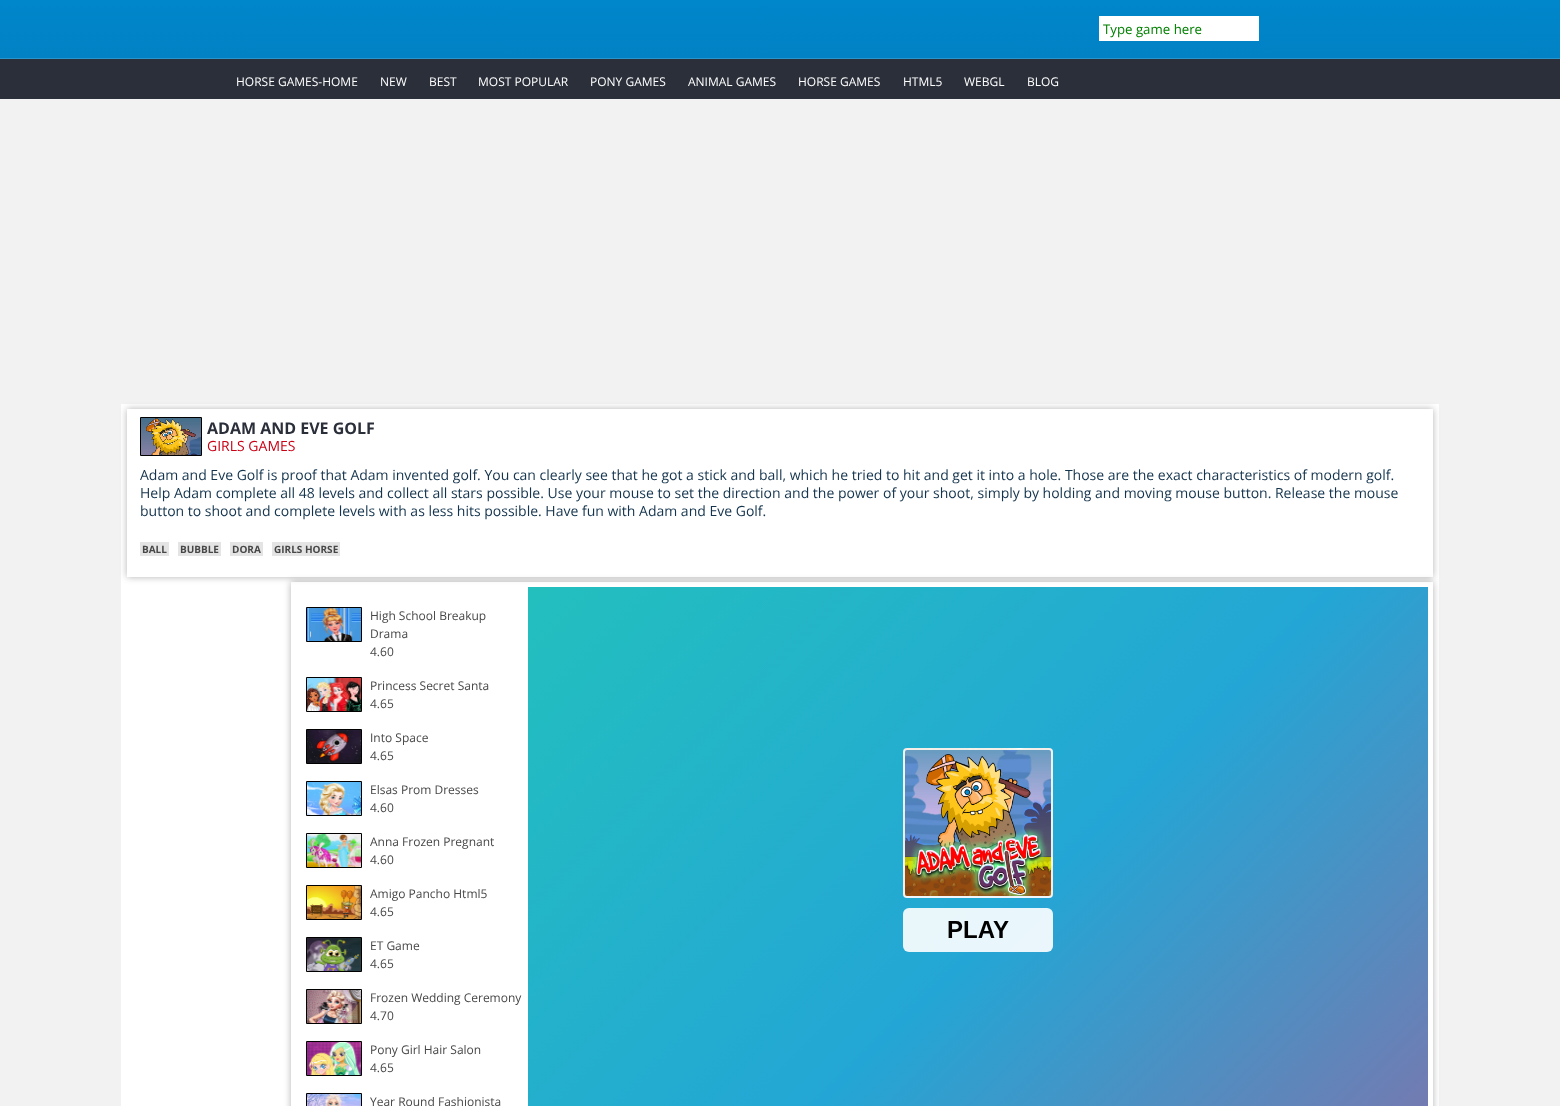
<svg xmlns="http://www.w3.org/2000/svg" width="1560" height="1106">
<style>
.a{font:13.25px Open Sans;fill:#008000}
.b{font:12px Open Sans;fill:#fff}
.c{font:bold 16px Open Sans;fill:#2b2f3a}
.d{font:14px Open Sans;fill:#c90114}
.e{font:14px Open Sans;fill:#14344d}
.f{font:bold 10px Open Sans;fill:#474747}
.g{font:12px Open Sans;fill:#474747}
</style>
<defs>
<linearGradient id="g1" gradientUnits="userSpaceOnUse" x1="780" y1="0" x2="780" y2="58"><stop offset="0" stop-color="#0086cb"/><stop offset="1" stop-color="#0282c5"/></linearGradient>
<clipPath id="clip1"><path d="M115 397h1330v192h-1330zm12 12h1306v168h-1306z" clip-rule="evenodd"/></clipPath>
<clipPath id="clip2"><path d="M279 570h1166v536h-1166zm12 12h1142v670h-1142z" clip-rule="evenodd"/></clipPath>
</defs>
<rect width="100%" height="100%" fill="#f2f2f2"/>
<path fill="url(#g1)" d="M0 0h1560v58H0z"/>
<path fill="#2895cd" d="M0 58h1560v1H0z"/>
<path fill="#fff" d="M1099 16h160v25H1099z"/>
<path fill="#2b2f3a" d="M0 59h1560v40H0z"/>
<path fill="#fff" d="M121 404h1318v702H121z"/>
<g clip-path="url(#clip1)">
<path fill="#0000004d" filter="blur(3.5px)" d="M127 409h1306v168H127z"/>
</g>
<path fill="none" stroke="#000" d="M140.5 417.5h61v38H140.5z"/>
<image href="1.png" x="141" y="418" width="60" height="37"/>
<path fill="#e4e4e4" d="M140 542h29v14H140z"/>
<path fill="#e4e4e4" d="M178 542h43v14H178z"/>
<path fill="#e4e4e4" d="M230 542h33v14H230z"/>
<path fill="#e4e4e4" d="M272 542h68v14H272z"/>
<g clip-path="url(#clip2)">
<path fill="#0000004d" filter="blur(3.5px)" d="M291 582h1142v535H291z"/>
</g>
<path fill="none" stroke="#000" d="M306.5 607.5h55v34H306.5z"/>
<image href="2.png" x="307" y="608" width="54" height="33"/>
<path fill="none" stroke="#000" d="M306.5 677.5h55v34H306.5z"/>
<image href="3.png" x="307" y="678" width="54" height="33"/>
<path fill="none" stroke="#000" d="M306.5 729.5h55v34H306.5z"/>
<image href="4.png" x="307" y="730" width="54" height="33"/>
<path fill="none" stroke="#000" d="M306.5 781.5h55v34H306.5z"/>
<image href="5.png" x="307" y="782" width="54" height="33"/>
<path fill="none" stroke="#000" d="M306.5 833.5h55v34H306.5z"/>
<image href="6.png" x="307" y="834" width="54" height="33"/>
<path fill="none" stroke="#000" d="M306.5 885.5h55v34H306.5z"/>
<image href="7.png" x="307" y="886" width="54" height="33"/>
<path fill="none" stroke="#000" d="M306.5 937.5h55v34H306.5z"/>
<image href="8.png" x="307" y="938" width="54" height="33"/>
<path fill="none" stroke="#000" d="M306.5 989.5h55v34H306.5z"/>
<image href="9.png" x="307" y="990" width="54" height="33"/>
<path fill="none" stroke="#000" d="M306.5 1041.5h55v34H306.5z"/>
<image href="10.png" x="307" y="1042" width="54" height="33"/>
<path fill="none" stroke="#000" d="M306.5 1093.5h55v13H306.5z"/>
<image href="11.png" x="307" y="1094" width="54" height="12"/>
<image href="12.png" x="528" y="587" width="900" height="519"/>
<text class="a" x="1103" y="34">Type game here</text>
<text class="b" x="236" y="86">HORSE GAMES-HOME</text>
<text class="b" x="380" y="86">NEW</text>
<text class="b" x="429" y="86">BEST</text>
<text class="b" x="478" y="86">MOST POPULAR</text>
<text class="b" x="590" y="86">PONY GAMES</text>
<text class="b" x="688" y="86">ANIMAL GAMES</text>
<text class="b" x="798" y="86">HORSE GAMES</text>
<text class="b" x="903" y="86">HTML5</text>
<text class="b" x="964" y="86">WEBGL</text>
<text class="b" x="1027" y="86">BLOG</text>
<text class="c" x="207" y="434">ADAM AND EVE GOLF</text>
<text class="d" x="207" y="451">GIRLS GAMES</text>
<text class="e" x="140" y="480">Adam and Eve Golf is proof that Adam invented golf. You can clearly see that he got a stick and ball, which he tried to hit and get it into a hole. Those are the exact characteristics of modern golf.</text>
<text class="e" x="140" y="498">Help Adam complete all 48 levels and collect all stars possible. Use your mouse to set the direction and the power of your shoot, simply by holding and moving mouse button. Release the mouse</text>
<text class="e" x="140" y="516">button to shoot and complete levels with as less hits possible. Have fun with Adam and Eve Golf.</text>
<text class="f" x="142" y="553">BALL</text>
<text class="f" x="180" y="553">BUBBLE</text>
<text class="f" x="232" y="553">DORA</text>
<text class="f" x="274" y="553">GIRLS HORSE</text>
<text class="g" x="370" y="620">High School Breakup</text>
<text class="g" x="370" y="638">Drama</text>
<text class="g" x="370" y="656">4.60</text>
<text class="g" x="370" y="690">Princess Secret Santa</text>
<text class="g" x="370" y="708">4.65</text>
<text class="g" x="370" y="742">Into Space</text>
<text class="g" x="370" y="760">4.65</text>
<text class="g" x="370" y="794">Elsas Prom Dresses</text>
<text class="g" x="370" y="812">4.60</text>
<text class="g" x="370" y="846">Anna Frozen Pregnant</text>
<text class="g" x="370" y="864">4.60</text>
<text class="g" x="370" y="898">Amigo Pancho Html5</text>
<text class="g" x="370" y="916">4.65</text>
<text class="g" x="370" y="950">ET Game</text>
<text class="g" x="370" y="968">4.65</text>
<text class="g" x="370" y="1002">Frozen Wedding Ceremony</text>
<text class="g" x="370" y="1020">4.70</text>
<text class="g" x="370" y="1054">Pony Girl Hair Salon</text>
<text class="g" x="370" y="1072">4.65</text>
<text class="g" x="370" y="1106">Year Round Fashionista</text>
</svg>
